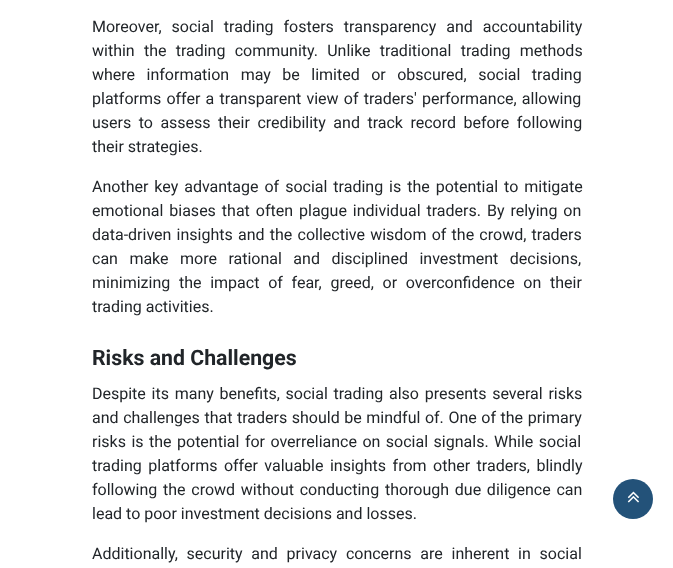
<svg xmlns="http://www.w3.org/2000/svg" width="673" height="568">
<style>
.a{font:16px Roboto;fill:#212529}
.b{font:bold 21.25px Roboto;fill:#212529}
</style>
<rect width="100%" height="100%" fill="#fff"/>
<circle fill="#235279" cx="633" cy="499" r="20"/>
<image href="1.png" x="627" y="491" width="12" height="12"/>
<text class="a" x="92" y="32" word-spacing="6">Moreover, social trading fosters transparency and accountability</text>
<text class="a" x="92" y="56" word-spacing="5.25">within the trading community. Unlike traditional trading methods</text>
<text class="a" x="92" y="80" word-spacing="7.5">where information may be limited or obscured, social trading</text>
<text class="a" x="92" y="104" word-spacing="1.25">platforms offer a transparent view of traders' performance, allowing</text>
<text class="a" x="92" y="128" word-spacing="3.5">users to assess their credibility and track record before following</text>
<text class="a" x="92" y="152">their strategies.</text>
<text class="a" x="92" y="192" word-spacing="2">Another key advantage of social trading is the potential to mitigate</text>
<text class="a" x="92" y="216" word-spacing="2">emotional biases that often plague individual traders. By relying on</text>
<text class="a" x="92" y="240" word-spacing="1.25">data-driven insights and the collective wisdom of the crowd, traders</text>
<text class="a" x="92" y="264" word-spacing="7.5">can make more rational and disciplined investment decisions,</text>
<text class="a" x="92" y="288" word-spacing="4.75">minimizing the impact of fear, greed, or overconfidence on their</text>
<text class="a" x="92" y="312">trading activities.</text>
<text class="b" x="92" y="365">Risks and Challenges</text>
<text class="a" x="92" y="399" word-spacing="1.75">Despite its many benefits, social trading also presents several risks</text>
<text class="a" x="92" y="423" word-spacing="0.6">and challenges that traders should be mindful of. One of the primary</text>
<text class="a" x="92" y="447" word-spacing="1.5">risks is the potential for overreliance on social signals. While social</text>
<text class="a" x="92" y="471" word-spacing="2.5">trading platforms offer valuable insights from other traders, blindly</text>
<text class="a" x="92" y="495" word-spacing="1.75">following the crowd without conducting thorough due diligence can</text>
<text class="a" x="92" y="519">lead to poor investment decisions and losses.</text>
<text class="a" x="92" y="559" word-spacing="4.75">Additionally, security and privacy concerns are inherent in social</text>
</svg>
